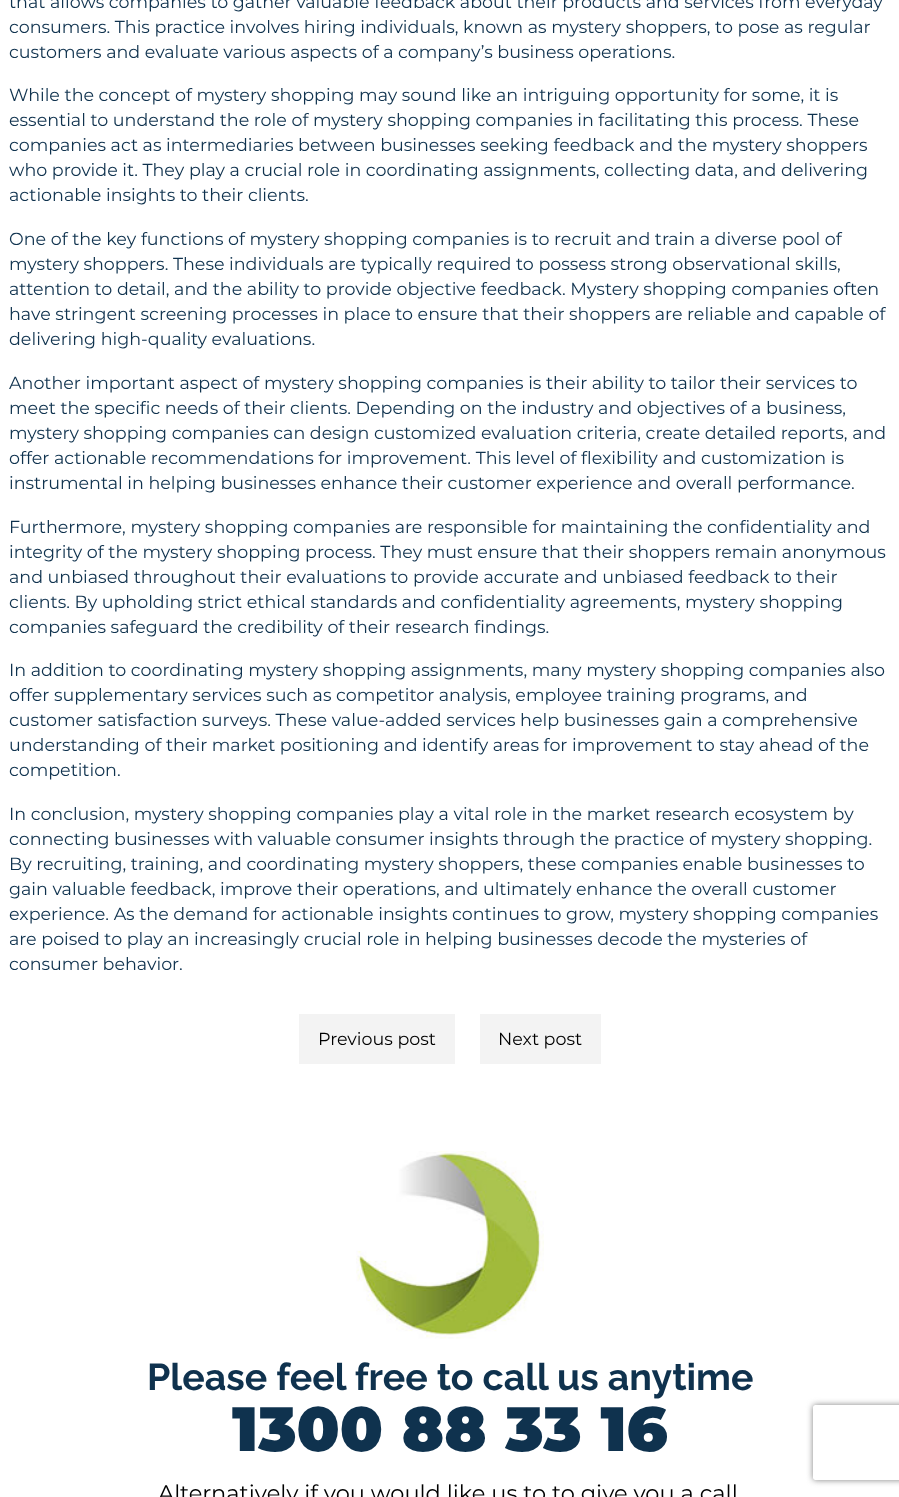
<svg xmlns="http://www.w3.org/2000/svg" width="899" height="1497">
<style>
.a{font:17.5px Montserrat;fill:#0f324e}
.b{font:17.5px Montserrat;fill:#000}
.c{font:bold 37.5px Raleway;fill:#0f324e}
.d{font:900 62.5px Montserrat;fill:#0f324e}
.e{font:22.5px Montserrat;fill:#000}
</style>
<defs>
<clipPath id="clip1"><path d="M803 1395h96v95h-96zm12.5 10h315c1.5 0 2.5 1 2.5 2.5v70c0 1.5-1 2.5-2.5 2.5h-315c-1.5 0-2.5-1-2.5-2.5v-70c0-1.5 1-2.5 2.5-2.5z" clip-rule="evenodd"/></clipPath>
</defs>
<rect width="100%" height="100%" fill="#fff"/>
<path fill="#f3f3f3" d="M299 1014h156v50H299z"/>
<path fill="#f3f3f3" d="M480 1014h121v50H480z"/>
<image href="1.png" x="356" y="1151" width="188" height="188"/>
<g clip-path="url(#clip1)">
<rect fill="#808080" filter="blur(3px)" x="813" y="1405" width="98" height="75" rx="2.5"/>
</g>
<text class="a" x="9" y="8">that allows companies to gather valuable feedback about their products and services from everyday</text>
<text class="a" x="9" y="33">consumers. This practice involves hiring individuals, known as mystery shoppers, to pose as regular</text>
<text class="a" x="9" y="58">customers and evaluate various aspects of a company’s business operations.</text>
<text class="a" x="9" y="101">While the concept of mystery shopping may sound like an intriguing opportunity for some, it is</text>
<text class="a" x="9" y="126">essential to understand the role of mystery shopping companies in facilitating this process. These</text>
<text class="a" x="9" y="151">companies act as intermediaries between businesses seeking feedback and the mystery shoppers</text>
<text class="a" x="9" y="176">who provide it. They play a crucial role in coordinating assignments, collecting data, and delivering</text>
<text class="a" x="9" y="201">actionable insights to their clients.</text>
<text class="a" x="9" y="245">One of the key functions of mystery shopping companies is to recruit and train a diverse pool of</text>
<text class="a" x="9" y="270">mystery shoppers. These individuals are typically required to possess strong observational skills,</text>
<text class="a" x="9" y="295">attention to detail, and the ability to provide objective feedback. Mystery shopping companies often</text>
<text class="a" x="9" y="320">have stringent screening processes in place to ensure that their shoppers are reliable and capable of</text>
<text class="a" x="9" y="345">delivering high-quality evaluations.</text>
<text class="a" x="9" y="389">Another important aspect of mystery shopping companies is their ability to tailor their services to</text>
<text class="a" x="9" y="414">meet the specific needs of their clients. Depending on the industry and objectives of a business,</text>
<text class="a" x="9" y="439">mystery shopping companies can design customized evaluation criteria, create detailed reports, and</text>
<text class="a" x="9" y="464">offer actionable recommendations for improvement. This level of flexibility and customization is</text>
<text class="a" x="9" y="489">instrumental in helping businesses enhance their customer experience and overall performance.</text>
<text class="a" x="9" y="533">Furthermore, mystery shopping companies are responsible for maintaining the confidentiality and</text>
<text class="a" x="9" y="558">integrity of the mystery shopping process. They must ensure that their shoppers remain anonymous</text>
<text class="a" x="9" y="583">and unbiased throughout their evaluations to provide accurate and unbiased feedback to their</text>
<text class="a" x="9" y="608">clients. By upholding strict ethical standards and confidentiality agreements, mystery shopping</text>
<text class="a" x="9" y="633">companies safeguard the credibility of their research findings.</text>
<text class="a" x="9" y="676">In addition to coordinating mystery shopping assignments, many mystery shopping companies also</text>
<text class="a" x="9" y="701">offer supplementary services such as competitor analysis, employee training programs, and</text>
<text class="a" x="9" y="726">customer satisfaction surveys. These value-added services help businesses gain a comprehensive</text>
<text class="a" x="9" y="751">understanding of their market positioning and identify areas for improvement to stay ahead of the</text>
<text class="a" x="9" y="776">competition.</text>
<text class="a" x="9" y="820">In conclusion, mystery shopping companies play a vital role in the market research ecosystem by</text>
<text class="a" x="9" y="845">connecting businesses with valuable consumer insights through the practice of mystery shopping.</text>
<text class="a" x="9" y="870">By recruiting, training, and coordinating mystery shoppers, these companies enable businesses to</text>
<text class="a" x="9" y="895">gain valuable feedback, improve their operations, and ultimately enhance the overall customer</text>
<text class="a" x="9" y="920">experience. As the demand for actionable insights continues to grow, mystery shopping companies</text>
<text class="a" x="9" y="945">are poised to play an increasingly crucial role in helping businesses decode the mysteries of</text>
<text class="a" x="9" y="970">consumer behavior.</text>
<text class="b" x="318" y="1045">Previous post</text>
<text class="b" x="498" y="1045">Next post</text>
<text class="c" x="147" y="1390">Please feel free to call us anytime</text>
<text class="d" x="232" y="1451">1300 88 33 16</text>
<text class="e" x="158" y="1501">Alternatively if you would like us to to give you a call</text>
</svg>
